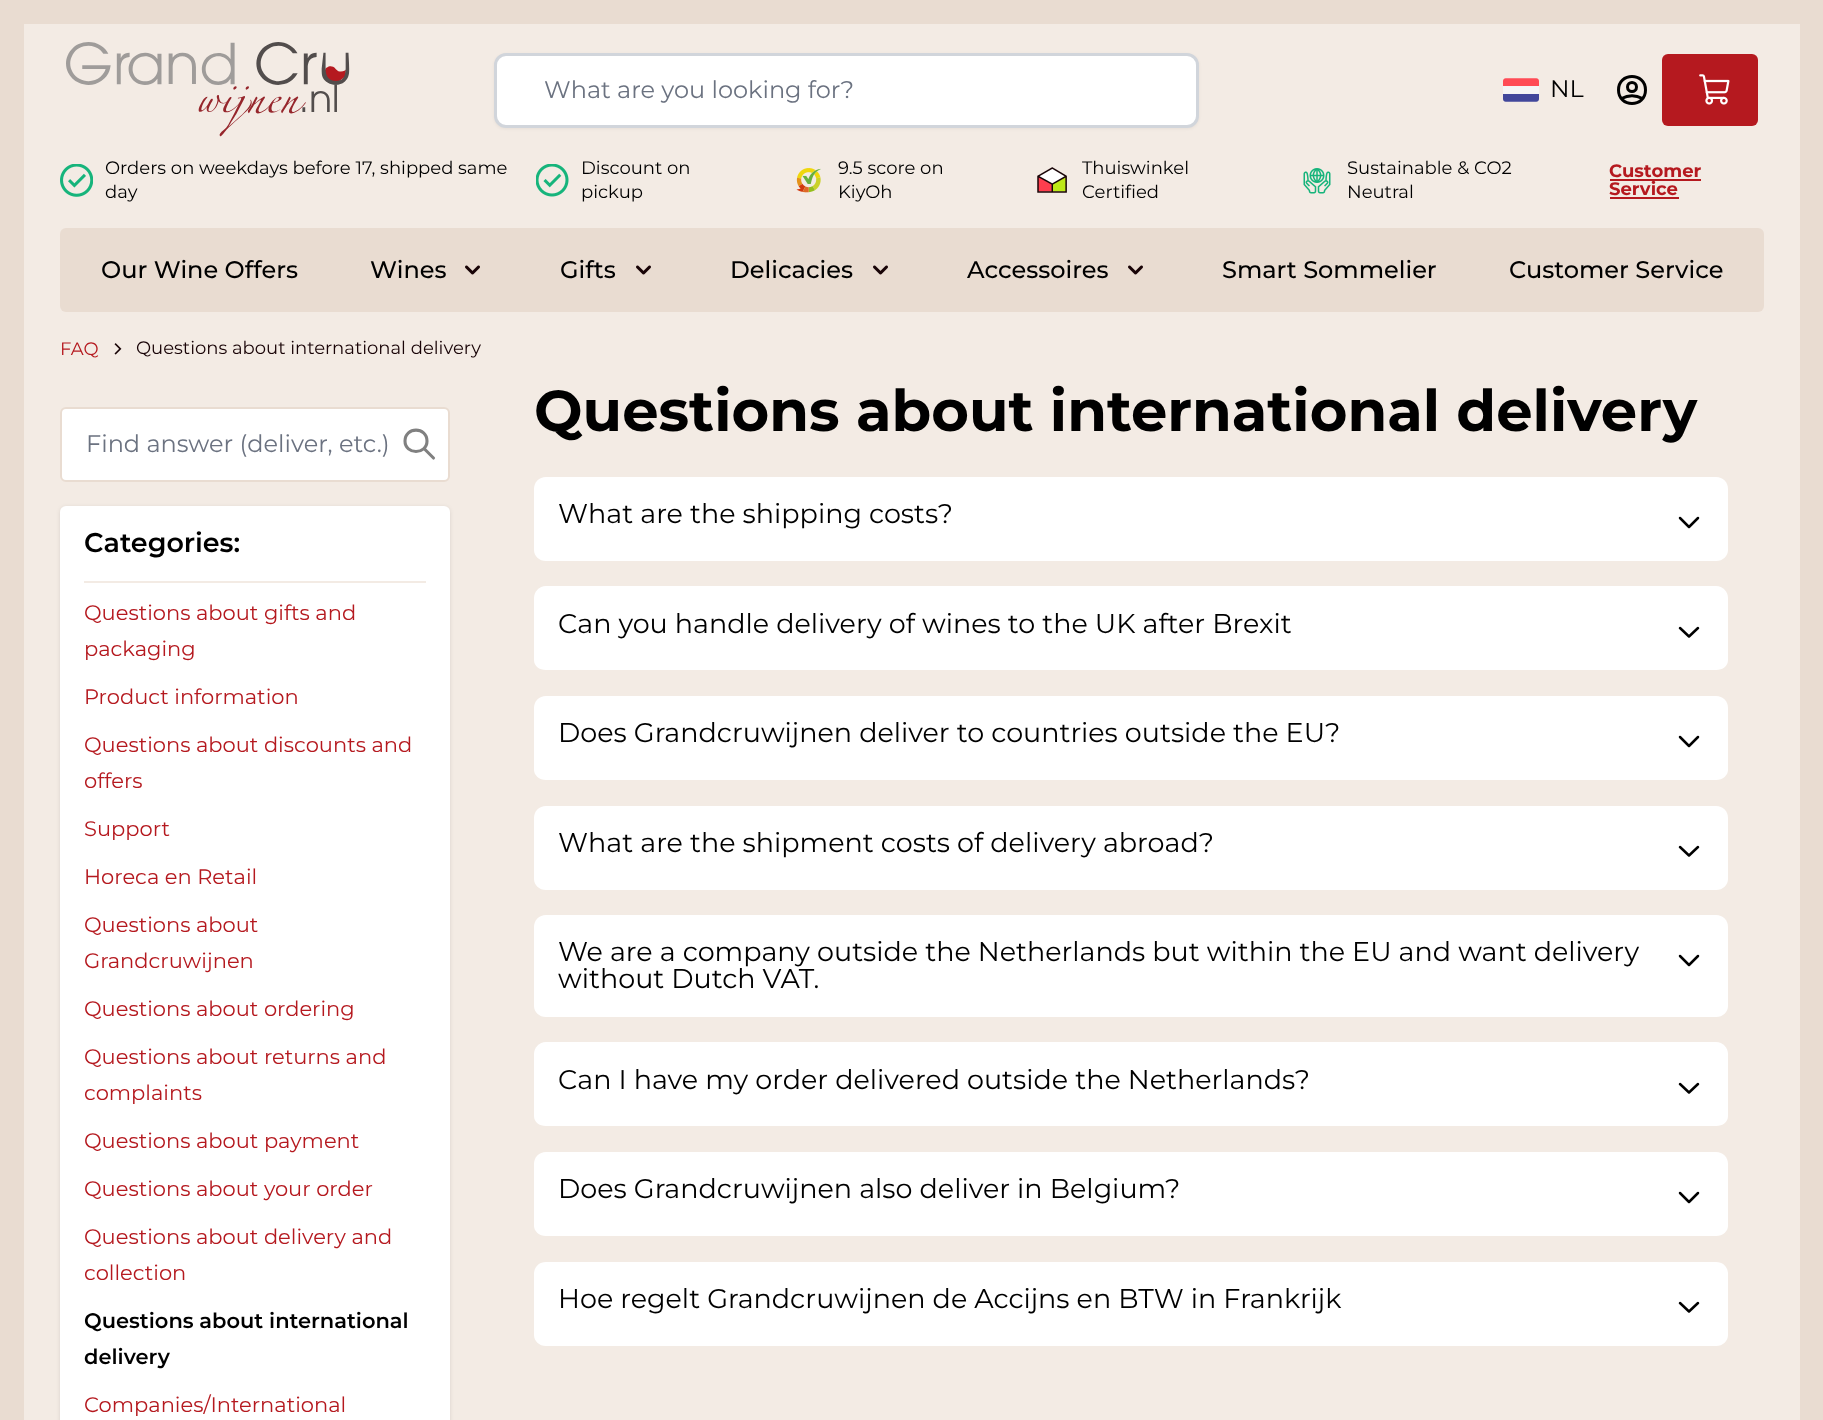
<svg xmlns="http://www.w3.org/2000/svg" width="1823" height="1420">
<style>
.a{font:24px Montserrat;fill:#6b7280}
.b{font:24px Montserrat;fill:#000}
.c{font:18px Montserrat;fill:#000}
.d{font:bold 18px Montserrat;fill:#b5191f}
.e{font:500 24px Montserrat;fill:#000}
.f{font:18px Montserrat;fill:#b5191f}
.g{font:18px Montserrat;fill:#180306}
.h{font:600 27px Montserrat;fill:#000}
.i{font:21px Montserrat;fill:#b5191f}
.j{font:600 21px Montserrat;fill:#000}
.k{font:bold 57.6px Montserrat;fill:#000}
.l{font:27px Montserrat;fill:#000}
</style>
<rect width="100%" height="100%" fill="#e9dcd1"/>
<path fill="#f3ebe4" d="M24 24h1776v1396H24z"/>
<image href="1.png" x="66" y="42" width="284" height="95"/>
<rect fill="#0000000d" filter="blur(1.5px)" x="494" y="54" width="705" height="75" rx="12"/>
<rect fill="#fff" stroke="#d1d5db" stroke-width="3" x="495.5" y="54.5" width="702" height="72" rx="10.5"/>
<image href="2.png" x="1503" y="78" width="36" height="24"/>
<path fill="none" stroke="#000" stroke-width="3" stroke-linecap="round" stroke-linejoin="round" d="M1621.5 98.5c6.5-3.5 14.5-3.5 21 0m-6-11.5c0 6-9 6-9 0c0-6 9-6 9 0zm9 3c0 18-27 18-27 0c0-18 27-18 27 0z"/>
<rect fill="#b5191f" x="1662" y="54" width="96" height="72" rx="6"/>
<image href="3.png" x="1699" y="74" width="31" height="31"/>
<image href="4.png" x="60" y="164" width="33" height="33"/>
<image href="5.png" x="536" y="164" width="33" height="33"/>
<image href="6.png" x="796" y="168" width="25" height="25"/>
<image href="7.png" x="1037" y="167" width="30" height="26"/>
<image href="8.png" x="1303" y="168" width="28" height="26"/>
<path fill="#b5191f" d="M1610 179h91v2H1610z"/>
<path fill="#b5191f" d="M1610 197h69v2H1610z"/>
<rect fill="#e9dcd1" x="60" y="228" width="1704" height="84" rx="6"/>
<image href="9.png" x="465" y="265" width="15" height="10"/>
<image href="9.png" x="636" y="265" width="15" height="10"/>
<image href="9.png" x="873" y="265" width="15" height="10"/>
<image href="9.png" x="1128" y="265" width="15" height="10"/>
<image href="10.png" x="114" y="343" width="8" height="12"/>
<rect fill="#fff" stroke="#e9dcd1" stroke-width="2" x="61" y="408" width="388" height="73" rx="5"/>
<path fill="none" stroke="#808080" stroke-width="3.1" stroke-linecap="round" stroke-linejoin="round" d="M433.5 458l-9.5-9.5m3-7.5c0 14-22 14-22 0c0-14.5 22-14.5 22 0z"/>
<rect fill="#0000001a" filter="blur(2px)" x="60" y="507" width="390" height="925" rx="6"/>
<rect fill="#fff" x="60" y="506" width="390" height="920" rx="6"/>
<path fill="#f3ebe4" d="M84 581h342v2H84z"/>
<path fill="#fff" d="M546 477h1170c7 0 12 5 12 12v61c0 6-5 11-12 11h-1170c-7 0-12-5-12-11v-61c0-7 5-12 12-12z"/>
<path fill="none" stroke="#000" stroke-width="2.5" stroke-linecap="round" stroke-linejoin="round" d="M1698 518l-9 9l-9-9"/>
<path fill="#fff" d="M546 586h1170c7 0 12 6 12 12v62c0 6-5 10-12 10h-1170c-7 0-12-4-12-10v-62c0-6 5-12 12-12z"/>
<path fill="none" stroke="#000" stroke-width="2.5" stroke-linecap="round" stroke-linejoin="round" d="M1698 628l-9 8.5l-9-8.5"/>
<path fill="#fff" d="M546 696h1170c7 0 12 5 12 12v62c0 5-5 10-12 10h-1170c-7 0-12-5-12-10v-62c0-7 5-12 12-12z"/>
<path fill="none" stroke="#000" stroke-width="2.5" stroke-linecap="round" stroke-linejoin="round" d="M1698 737l-9 9l-9-9"/>
<path fill="#fff" d="M546 806h1170c7 0 12 5 12 12v61c0 6-5 11-12 11h-1170c-7 0-12-5-12-11v-61c0-7 5-12 12-12z"/>
<path fill="none" stroke="#000" stroke-width="2.5" stroke-linecap="round" stroke-linejoin="round" d="M1698 847l-9 8.5l-9-8.5"/>
<path fill="#fff" d="M546 915h1170c7 0 12 5 12 12v79c0 6-5 11-12 11h-1170c-7 0-12-5-12-11v-79c0-7 5-12 12-12z"/>
<path fill="none" stroke="#000" stroke-width="2.5" stroke-linecap="round" stroke-linejoin="round" d="M1698 956l-9 9l-9-9"/>
<path fill="#fff" d="M546 1042h1170c7 0 12 6 12 12v62c0 6-5 10-12 10h-1170c-7 0-12-4-12-10v-62c0-6 5-12 12-12z"/>
<path fill="none" stroke="#000" stroke-width="2.5" stroke-linecap="round" stroke-linejoin="round" d="M1698 1084l-9 8.5l-9-8.5"/>
<path fill="#fff" d="M546 1152h1170c7 0 12 5 12 12v62c0 5-5 10-12 10h-1170c-7 0-12-5-12-10v-62c0-7 5-12 12-12z"/>
<path fill="none" stroke="#000" stroke-width="2.5" stroke-linecap="round" stroke-linejoin="round" d="M1698 1193l-9 9l-9-9"/>
<path fill="#fff" d="M546 1262h1170c7 0 12 5 12 12v61c0 6-5 11-12 11h-1170c-7 0-12-5-12-11v-61c0-7 5-12 12-12z"/>
<path fill="none" stroke="#000" stroke-width="2.5" stroke-linecap="round" stroke-linejoin="round" d="M1698 1303l-9 8.5l-9-8.5"/>
<text class="a" x="544" y="98">What are you looking for?</text>
<text class="b" x="1550" y="97">NL</text>
<text class="c" x="105" y="174">Orders on weekdays before 17, shipped same</text>
<text class="c" x="105" y="198">day</text>
<text class="c" x="581" y="174">Discount on</text>
<text class="c" x="581" y="198">pickup</text>
<text class="c" x="838" y="174">9.5 score on</text>
<text class="c" x="838" y="198">KiyOh</text>
<text class="c" x="1082" y="174">Thuiswinkel</text>
<text class="c" x="1082" y="198">Certified</text>
<text class="c" x="1347" y="174">Sustainable &amp; CO2</text>
<text class="c" x="1347" y="198">Neutral</text>
<text class="d" x="1609" y="177">Customer</text>
<text class="d" x="1609" y="195">Service</text>
<text class="e" x="101" y="278">Our Wine Offers</text>
<text class="e" x="370" y="278">Wines</text>
<text class="e" x="560" y="278">Gifts</text>
<text class="e" x="730" y="278">Delicacies</text>
<text class="e" x="967" y="278">Accessoires</text>
<text class="e" x="1222" y="278">Smart Sommelier</text>
<text class="e" x="1509" y="278">Customer Service</text>
<text class="f" x="60" y="355">FAQ</text>
<text class="g" x="136" y="354">Questions about international delivery</text>
<text class="a" x="86" y="452">Find answer (deliver, etc.)</text>
<text class="h" x="84" y="552">Categories:</text>
<text class="i" x="84" y="620">Questions about gifts and</text>
<text class="i" x="84" y="656">packaging</text>
<text class="i" x="84" y="704">Product information</text>
<text class="i" x="84" y="752">Questions about discounts and</text>
<text class="i" x="84" y="788">offers</text>
<text class="i" x="84" y="836">Support</text>
<text class="i" x="84" y="884">Horeca en Retail</text>
<text class="i" x="84" y="932">Questions about</text>
<text class="i" x="84" y="968">Grandcruwijnen</text>
<text class="i" x="84" y="1016">Questions about ordering</text>
<text class="i" x="84" y="1064">Questions about returns and</text>
<text class="i" x="84" y="1100">complaints</text>
<text class="i" x="84" y="1148">Questions about payment</text>
<text class="i" x="84" y="1196">Questions about your order</text>
<text class="i" x="84" y="1244">Questions about delivery and</text>
<text class="i" x="84" y="1280">collection</text>
<text class="j" x="84" y="1328">Questions about international</text>
<text class="j" x="84" y="1364">delivery</text>
<text class="i" x="84" y="1412">Companies/International</text>
<text class="k" x="534" y="431">Questions about international delivery</text>
<text class="l" x="558" y="523">What are the shipping costs?</text>
<text class="l" x="558" y="633">Can you handle delivery of wines to the UK after Brexit</text>
<text class="l" x="558" y="742">Does Grandcruwijnen deliver to countries outside the EU?</text>
<text class="l" x="558" y="852">What are the shipment costs of delivery abroad?</text>
<text class="l" x="558" y="961">We are a company outside the Netherlands but within the EU and want delivery</text>
<text class="l" x="558" y="988">without Dutch VAT.</text>
<text class="l" x="558" y="1089">Can I have my order delivered outside the Netherlands?</text>
<text class="l" x="558" y="1198">Does Grandcruwijnen also deliver in Belgium?</text>
<text class="l" x="558" y="1308">Hoe regelt Grandcruwijnen de Accijns en BTW in Frankrijk</text>
</svg>
